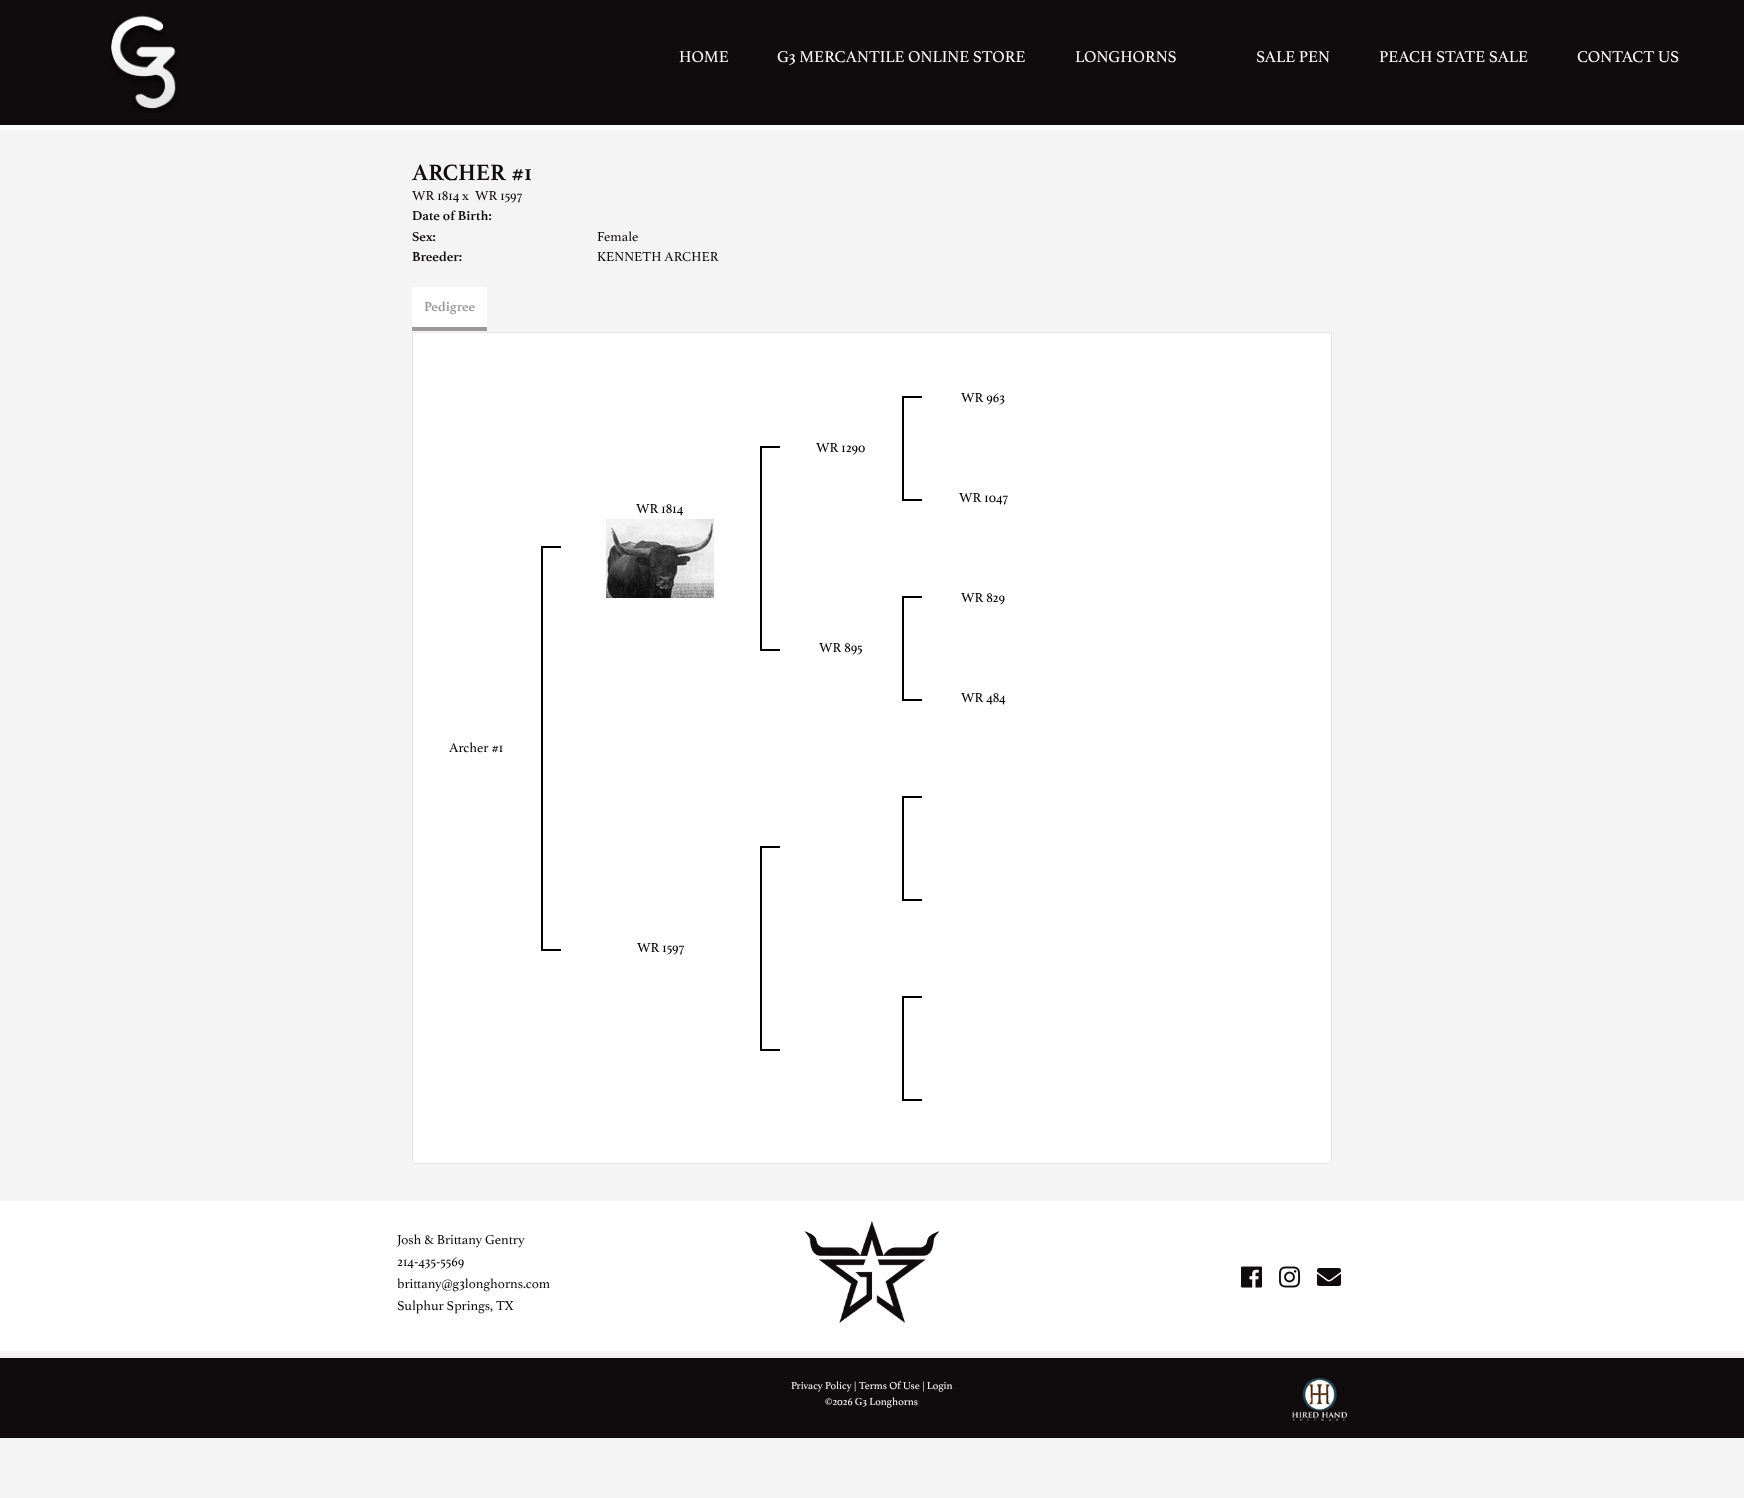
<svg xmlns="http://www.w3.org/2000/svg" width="1744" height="1498">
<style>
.a{font:17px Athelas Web;fill:#fff}
.b{font:bold 24px Athelas Web;fill:#100b0d}
.c{font:14px Athelas Web;fill:#100b0d}
.d{font:bold 14px Athelas Web;fill:#100b0d}
.e{font:bold 14px Athelas Web;fill:#9b9999}
.f{font:14px Athelas Web;fill:#000}
.g{font:11px Athelas Web;fill:#fff}
</style>
<rect width="100%" height="100%" fill="#f4f4f4"/>
<path fill="#100b0d" d="M0 0h1744v125H0z"/>
<path fill="#fff" d="M0 125h1744v5H0z"/>
<image href="1.png" x="110" y="15" width="67" height="98"/>
<path fill="#e5e5e5" d="M412 332h920v1H412z"/>
<path fill="#9b9999" d="M412 327h75v4H412z"/>
<path fill="#fff" d="M412 287h75v40H412z"/>
<path fill="#fff" d="M412 333h920v827c0 2-2 4-4 4h-912c-2 0-4-2-4-4z"/>
<path fill="#e5e5e5" fill-rule="evenodd" d="M412 333h920v827c0 2-2 4-4 4h-912c-2 0-4-2-4-4zm1 0h918v827c0 2-1 3-3 3h-912c-2 0-3-1-3-3z"/>
<image href="2.png" x="606" y="519" width="108" height="79"/>
<path fill="#000" d="M760 446h20v2H760z"/>
<path fill="#000" d="M760 649h20v2H760z"/>
<path fill="#000" d="M760 446h2v205H760z"/>
<path fill="#000" d="M902 396h20v2H902z"/>
<path fill="#000" d="M902 499h20v2H902z"/>
<path fill="#000" d="M902 396h2v105H902z"/>
<path fill="#000" d="M541 546h20v2H541z"/>
<path fill="#000" d="M541 949h20v2H541z"/>
<path fill="#000" d="M541 546h2v405H541z"/>
<path fill="#000" d="M902 596h20v2H902z"/>
<path fill="#000" d="M902 699h20v2H902z"/>
<path fill="#000" d="M902 596h2v105H902z"/>
<path fill="#000" d="M760 846h20v2H760z"/>
<path fill="#000" d="M760 1049h20v2H760z"/>
<path fill="#000" d="M760 846h2v205H760z"/>
<path fill="#000" d="M902 796h20v2H902z"/>
<path fill="#000" d="M902 899h20v2H902z"/>
<path fill="#000" d="M902 796h2v105H902z"/>
<path fill="#000" d="M902 996h20v2H902z"/>
<path fill="#000" d="M902 1099h20v2H902z"/>
<path fill="#000" d="M902 996h2v105H902z"/>
<path fill="#fff" d="M0 1201h1744v150H0z"/>
<image href="3.png" x="804" y="1221" width="136" height="102"/>
<image href="4.png" x="1241" y="1266" width="21" height="22"/>
<image href="5.png" x="1279" y="1266" width="21" height="22"/>
<image href="6.png" x="1317" y="1268" width="24" height="18"/>
<path fill="#100b0d" d="M0 1358h1744v80H0z"/>
<image href="7.png" x="1292" y="1378" width="55" height="43"/>
<text class="a" x="679" y="62">HOME</text>
<text class="a" x="777" y="62">G3 MERCANTILE ONLINE STORE</text>
<text class="a" x="1075" y="62">LONGHORNS</text>
<text class="a" x="1256" y="62">SALE PEN</text>
<text class="a" x="1379" y="62">PEACH STATE SALE</text>
<text class="a" x="1577" y="62">CONTACT US</text>
<text class="b" x="412" y="180">ARCHER #1</text>
<text class="c" x="412" y="200">WR 1814 x</text>
<text class="c" x="475" y="200">WR 1597</text>
<text class="d" x="412" y="220">Date of Birth:</text>
<text class="d" x="412" y="241">Sex:</text>
<text class="c" x="597" y="241">Female</text>
<text class="d" x="412" y="261">Breeder:</text>
<text class="c" x="597" y="261">KENNETH ARCHER</text>
<text class="e" x="424" y="311">Pedigree</text>
<text class="f" x="636" y="513">WR 1814</text>
<text class="f" x="816" y="452">WR 1290</text>
<text class="f" x="961" y="402">WR 963</text>
<text class="f" x="449" y="752">Archer #1</text>
<text class="f" x="959" y="502">WR 1047</text>
<text class="f" x="819" y="652">WR 895</text>
<text class="f" x="961" y="602">WR 829</text>
<text class="f" x="961" y="702">WR 484</text>
<text class="f" x="637" y="952">WR 1597</text>
<text class="c" x="397" y="1244">Josh &amp; Brittany Gentry</text>
<text class="c" x="397" y="1266">214-435-5569</text>
<text class="c" x="397" y="1288">brittany@g3longhorns.com</text>
<text class="c" x="397" y="1310">Sulphur Springs, TX</text>
<text class="g" x="791" y="1389">Privacy Policy | Terms Of Use | Login</text>
<text class="g" x="825" y="1405">©2026 G3 Longhorns</text>
</svg>
